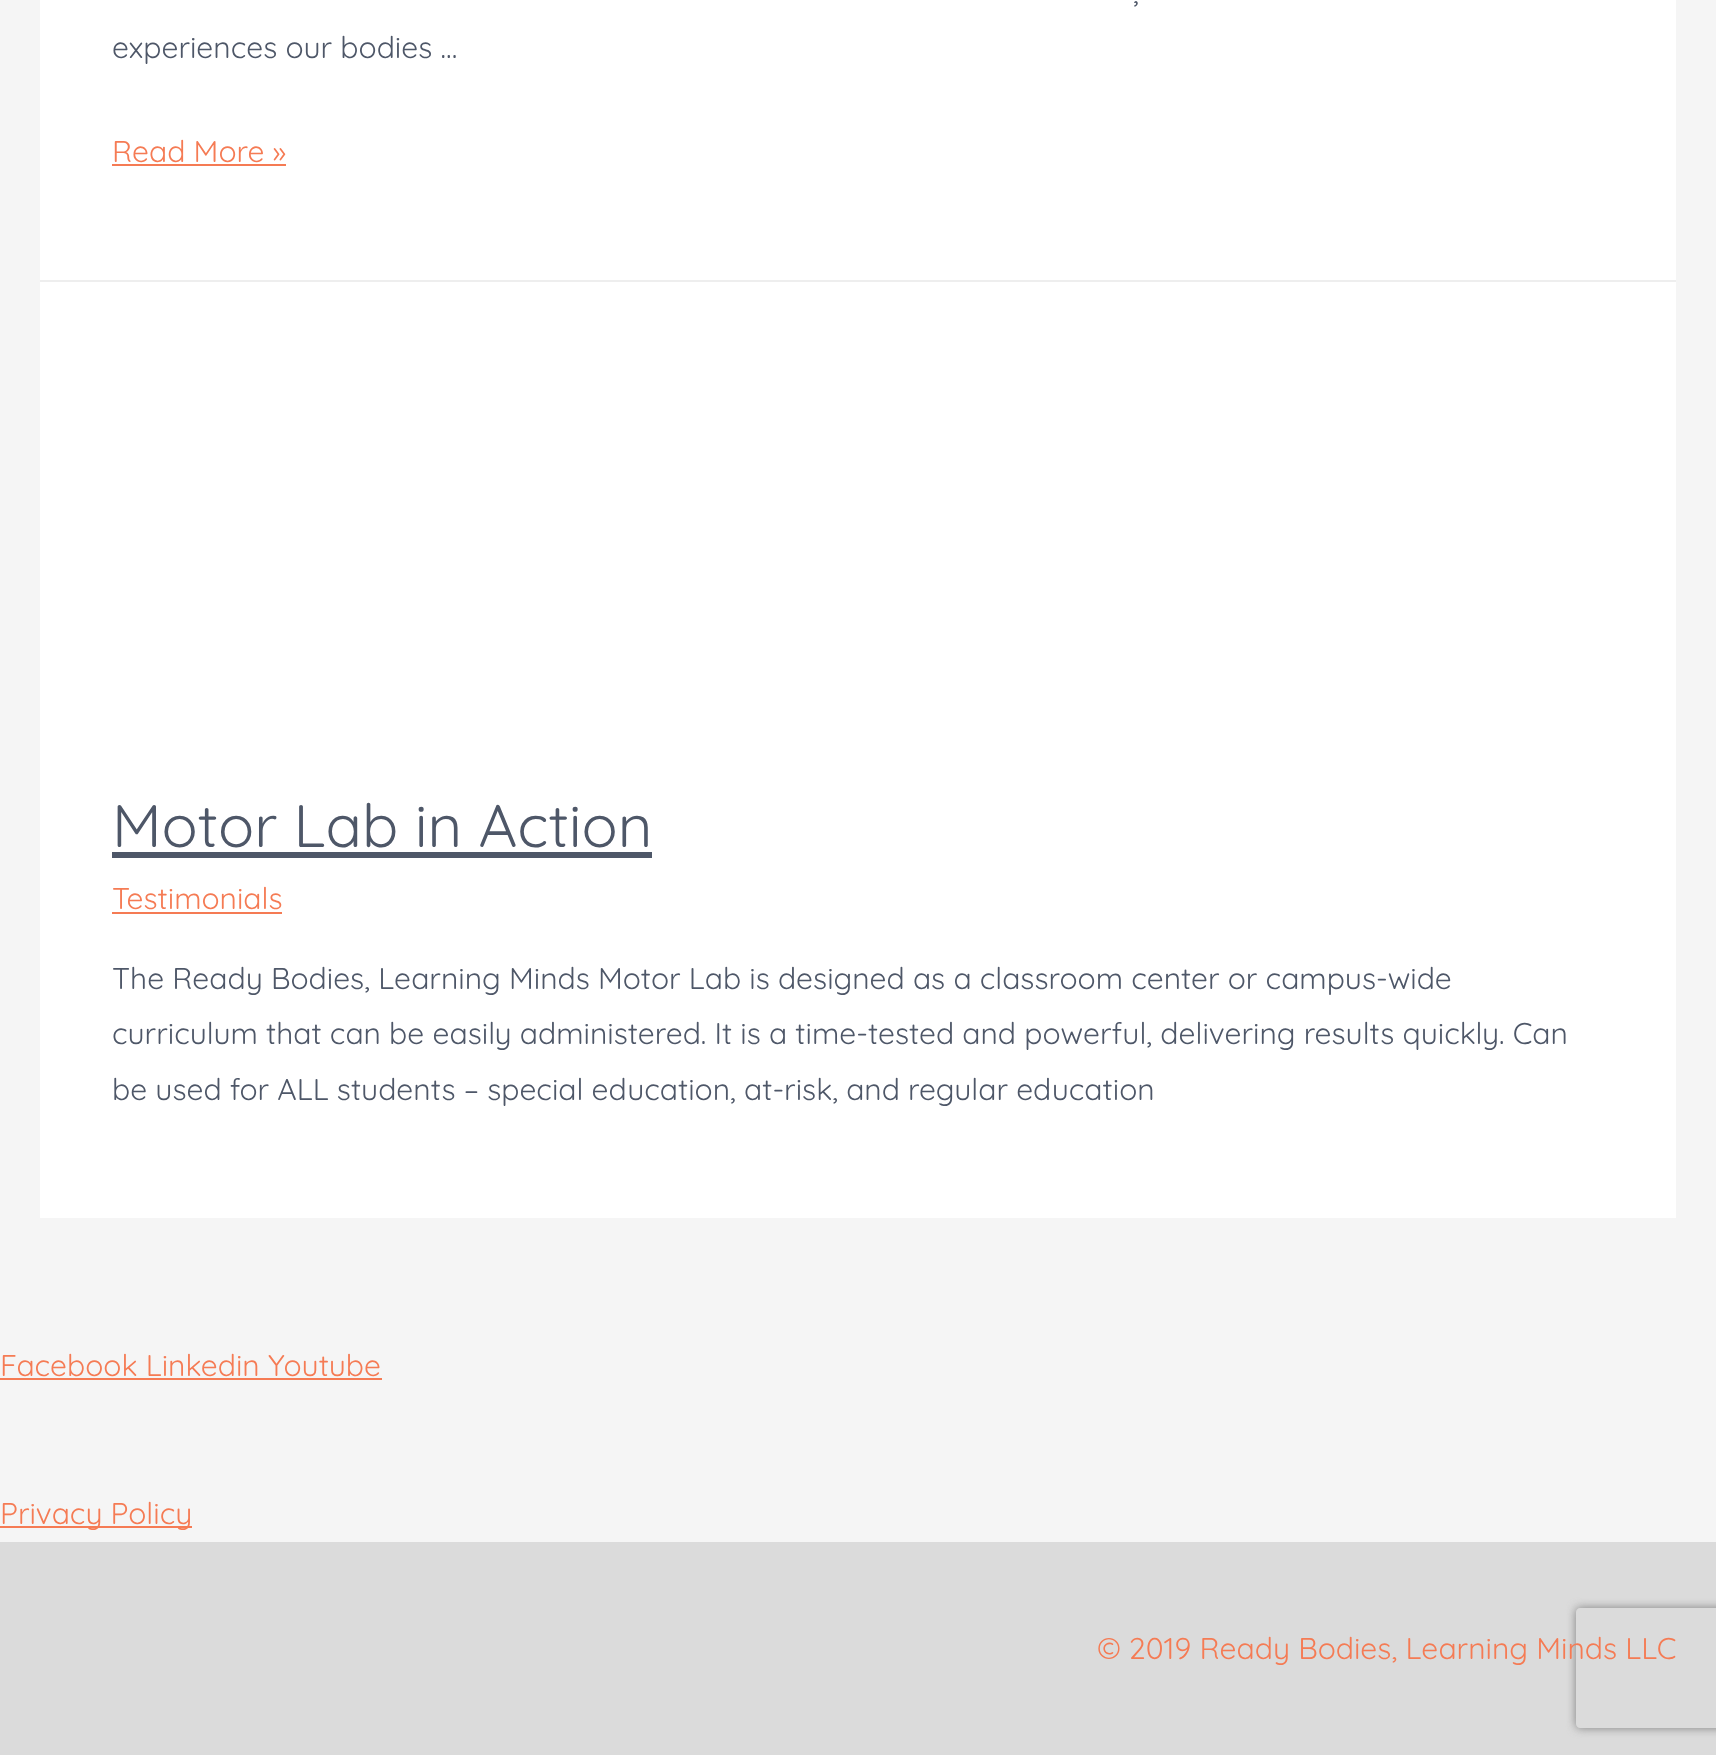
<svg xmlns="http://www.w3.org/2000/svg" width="1716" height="1755">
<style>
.a{font:30px Quicksand;fill:#4e5768}
.b{font:30px Quicksand;fill:#f57b54}
.c{font:60px Quicksand;fill:#4e5768}
</style>
<defs>
<clipPath id="clip1"><path d="M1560 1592h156v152h-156zm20 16h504c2 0 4 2 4 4v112c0 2-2 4-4 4h-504c-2 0-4-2-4-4v-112c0-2 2-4 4-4z" clip-rule="evenodd"/></clipPath>
</defs>
<rect width="100%" height="100%" fill="#f5f5f5"/>
<path fill="#fff" d="M40 0h1636v280H40z"/>
<path fill="#eee" d="M40 280h1636v2H40z"/>
<path fill="#f57b54" d="M112 164h174v2H112z"/>
<path fill="#fff" d="M40 282h1636v936H40z"/>
<path fill="#4e5768" d="M112 852h540v6H112z"/>
<path fill="#f57b54" d="M112 912h170v2H112z"/>
<path fill="#f57b54" d="M0 1378h382v2H0z"/>
<path fill="#f57b54" d="M0 1526h192v2H0z"/>
<path fill="#dbdbdb" d="M0 1542h1716v213H0z"/>
<g clip-path="url(#clip1)">
<rect fill="#808080" filter="blur(5px)" x="1576" y="1608" width="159" height="120" rx="4"/>
</g>
<text class="a" x="1133" y="3">,</text>
<text class="a" x="112" y="58">experiences our bodies …</text>
<text class="b" x="112" y="162">Read More »</text>
<text class="c" x="112" y="847">Motor Lab in Action</text>
<text class="b" x="112" y="909">Testimonials</text>
<text class="a" x="112" y="989">The Ready Bodies, Learning Minds Motor Lab is designed as a classroom center or campus-wide</text>
<text class="a" x="112" y="1044">curriculum that can be easily administered. It is a time-tested and powerful, delivering results quickly. Can</text>
<text class="a" x="112" y="1100">be used for ALL students – special education, at-risk, and regular education</text>
<text class="b" x="0" y="1376">Facebook Linkedin Youtube</text>
<text class="b" x="0" y="1524">Privacy Policy</text>
<text class="b" x="1097" y="1659">© 2019 Ready Bodies, Learning Minds LLC</text>
</svg>
